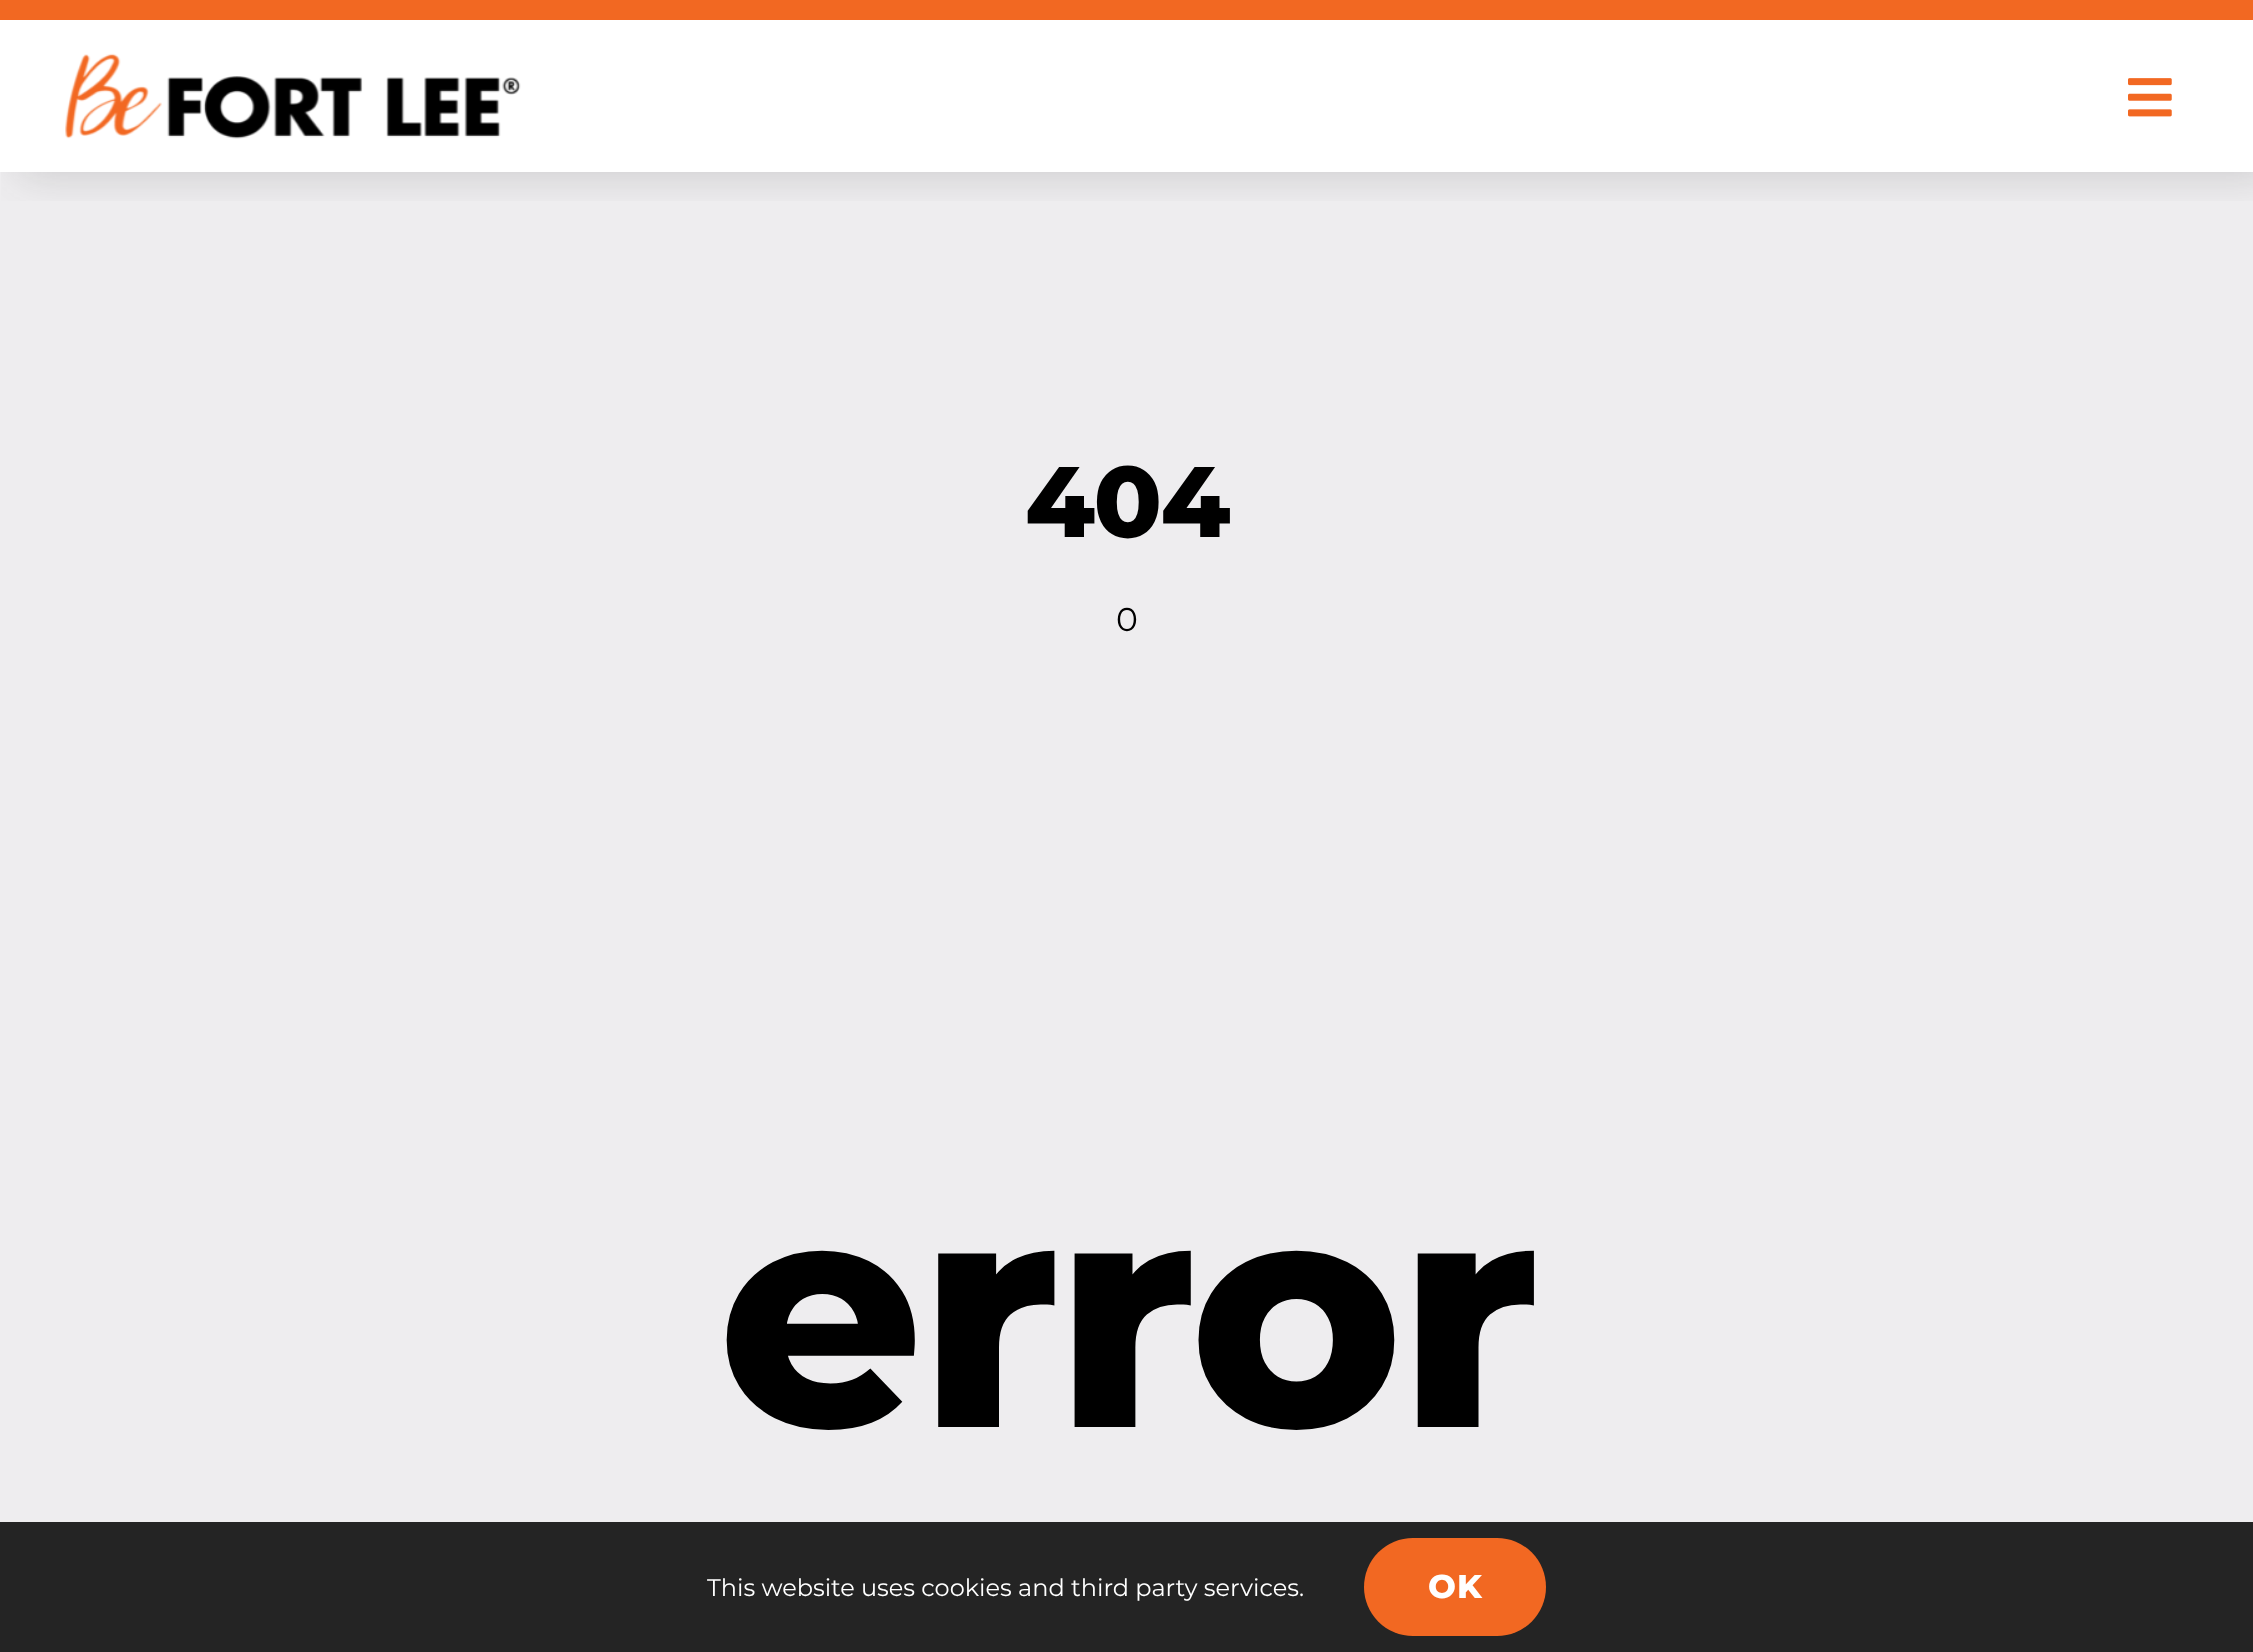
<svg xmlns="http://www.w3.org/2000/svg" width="2253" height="1652">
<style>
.a{font:800 100px Montserrat;letter-spacing:-1.5px;fill:#000}
.b{font:33px Montserrat;fill:#000}
.c{font:800 320px Montserrat;letter-spacing:-4.75px;fill:#000}
.d{font:24px Montserrat;fill:#fff}
.e{font:800 33px Montserrat;letter-spacing:1px;fill:#fff}
</style>
<defs>
<clipPath id="clip1"><path d="M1 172h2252v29H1z"/></clipPath>
</defs>
<rect width="100%" height="100%" fill="#fff"/>
<path fill="#eeedef" d="M0 172h2253v1480H0z"/>
<g clip-path="url(#clip1)">
<path fill="#2d2d2d33" filter="blur(23px)" d="M20 0h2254v172H20z"/>
</g>
<path fill="#f26822" d="M0 0h2253v20H0z"/>
<image href="1.png" x="65" y="53" width="456" height="86"/>
<image href="2.png" x="2128" y="78" width="44" height="39"/>
<path fill="#000000d9" d="M0 1522h2253v130H0z"/>
<rect fill="#f26822" x="1364" y="1538" width="182" height="98" rx="49"/>
<text class="a" x="1025" y="537">404</text>
<text class="b" x="1116" y="631">0</text>
<text class="c" x="718" y="1427">error</text>
<text class="d" x="707" y="1596">This website uses cookies and third party services.</text>
<text class="e" x="1428" y="1598">OK</text>
</svg>
